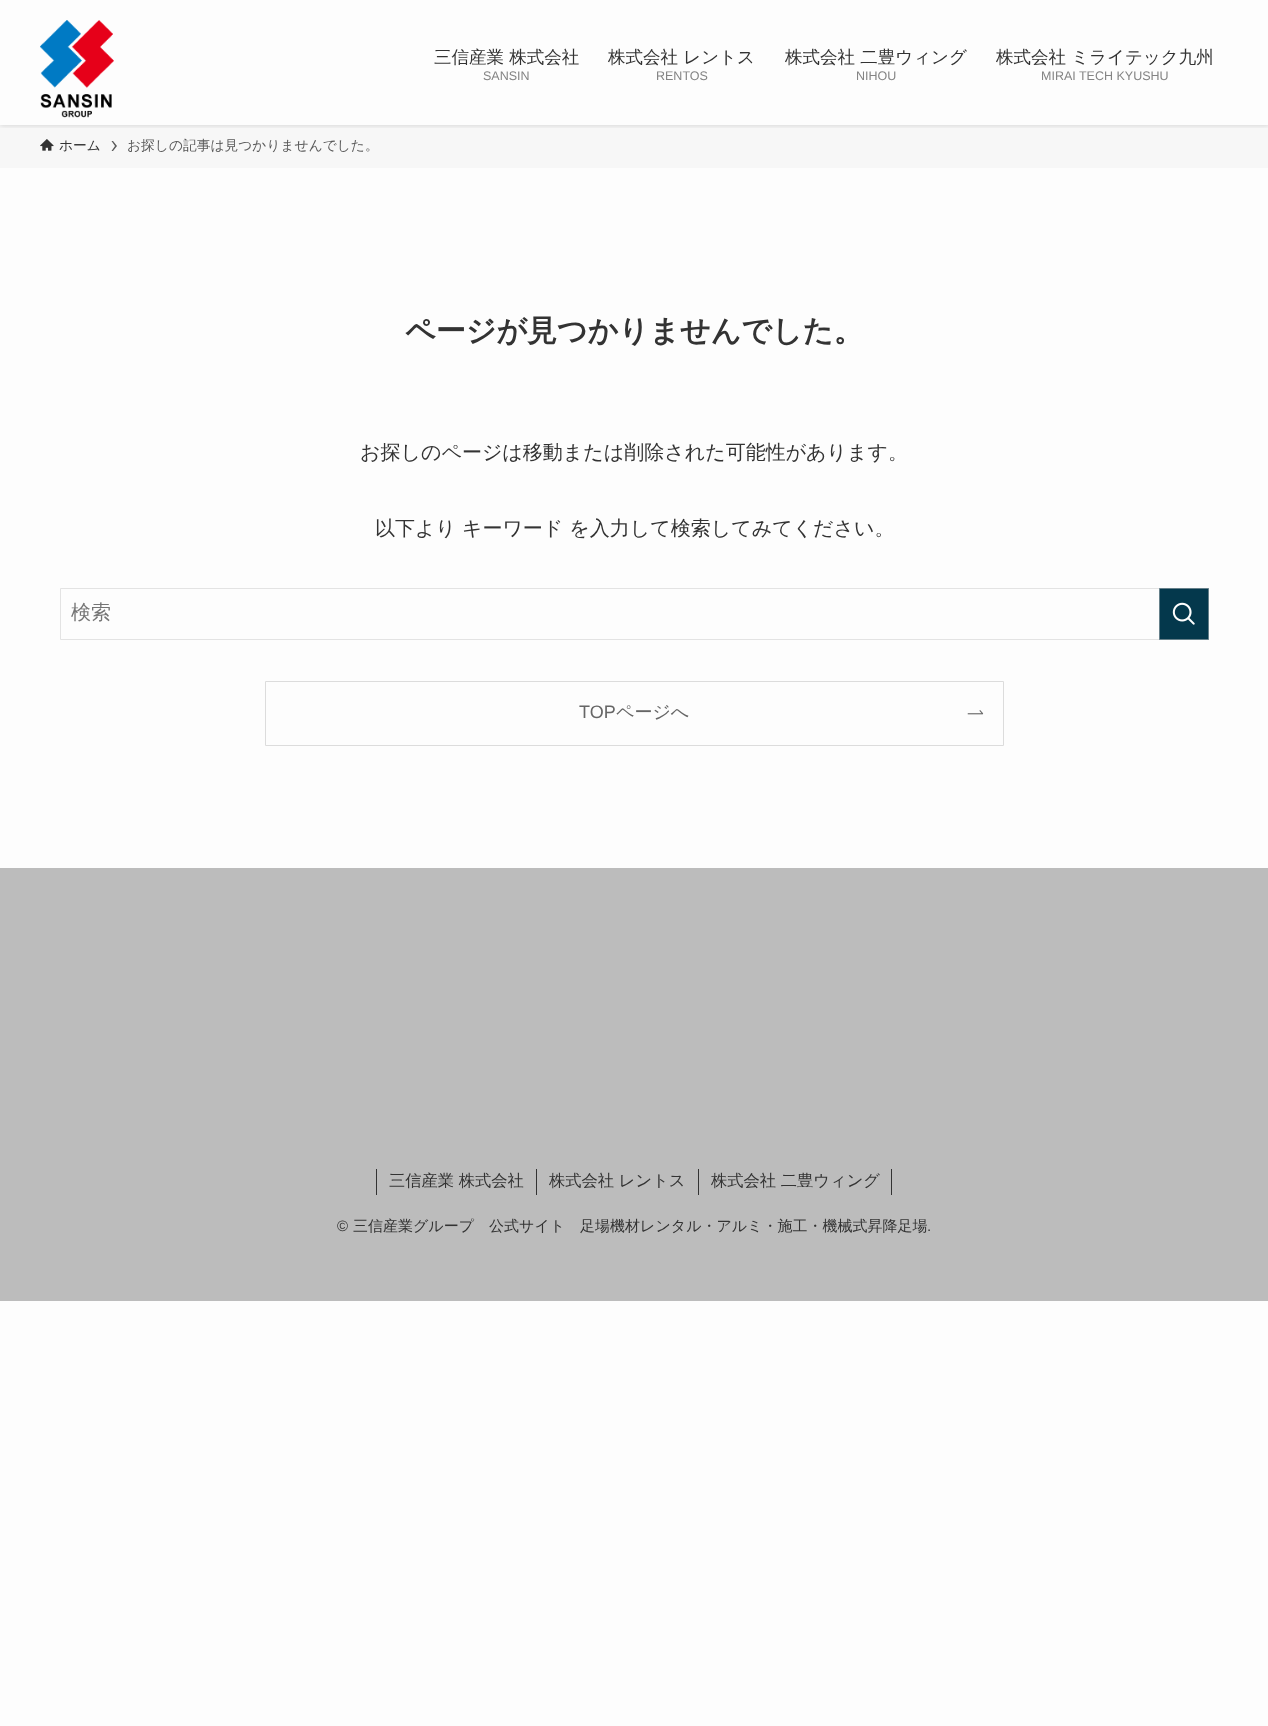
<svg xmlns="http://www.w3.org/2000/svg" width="1268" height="1726">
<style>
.a{font:500 17.5px WenQuanYi Zen Hei;fill:#333}
.b{font:12.5px Liberation Sans;fill:#848484}
.c{font:500 13.75px WenQuanYi Zen Hei;fill:#333}
.d{font:500 13.75px WenQuanYi Zen Hei;fill:#5a5a5a}
.e{font:bold 30px WenQuanYi Zen Hei;fill:#333}
.f{font:500 20px WenQuanYi Zen Hei;fill:#333}
.g{font:500 20px WenQuanYi Zen Hei;fill:#757575}
.h{font:18px Liberation Sans;fill:#666}
.i{font:500 18px WenQuanYi Zen Hei;fill:#666}
.j{font:500 16.25px WenQuanYi Zen Hei;fill:#333}
.k{font:15px Liberation Sans;fill:#333}
.l{font:500 15px WenQuanYi Zen Hei;fill:#333}
</style>
<defs>
<clipPath id="clip1"><path d="M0 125h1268v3H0z"/></clipPath>
</defs>
<rect width="100%" height="100%" fill="#fdfdfd"/>
<path fill="#f7f7f7" d="M0 125h1268v43H0z"/>
<g clip-path="url(#clip1)">
<path fill="#0000001f" filter="blur(2.5px)" d="M0 1h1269v125H0z"/>
</g>
<image href="1.png" x="40" y="20" width="74" height="98"/>
<image href="2.png" x="40" y="139" width="14" height="12"/>
<path fill="#5a5a5a" d="M113 141h-1.5l3.5 5l-3.5 5h1.5l4-5z"/>
<path fill="none" stroke="#e3e3e3" d="M60.5 588.5h1148v51H60.5z"/>
<path fill="#04384c" stroke="#66808a" d="M1159.5 588.5h49v51H1159.5z"/>
<image href="3.png" x="1172" y="602" width="23" height="23"/>
<path fill="none" stroke="#dcdcdc" d="M265.5 681.5h738v64H265.5z"/>
<image href="4.png" x="967" y="710" width="17" height="5"/>
<path fill="#bcbcbc" d="M0 868h1268v433H0z"/>
<path fill="#333" d="M536 1169h1v26H536z"/>
<path fill="#333" d="M376 1169h1v26H376z"/>
<path fill="#333" d="M698 1169h1v26H698z"/>
<path fill="#333" d="M891 1169h1v26H891z"/>
<text class="a" x="434" y="63">三信産業 株式会社</text>
<text class="b" x="483" y="80">SANSIN</text>
<text class="a" x="608" y="63">株式会社 レントス</text>
<text class="b" x="656" y="80">RENTOS</text>
<text class="a" x="785" y="63">株式会社 二豊ウィング</text>
<text class="b" x="856" y="80">NIHOU</text>
<text class="a" x="996" y="63">株式会社 ミライテック九州</text>
<text class="b" x="1041" y="80">MIRAI TECH KYUSHU</text>
<text class="c" x="59" y="150">ホーム</text>
<text class="d" x="127" y="150">お探しの記事は見つかりませんでした。</text>
<text class="e" x="405" y="341">ページが見つかりませんでした。</text>
<text class="f" x="360" y="459">お探しのページは移動または削除された可能性があります。</text>
<text class="f" x="375" y="535">以下より キーワード を入力して検索してみてください。</text>
<text class="g" x="71" y="619">検索</text>
<text class="h" x="579" y="718">TOP</text>
<text class="i" x="616" y="718">ページへ</text>
<text class="j" x="389" y="1186">三信産業 株式会社</text>
<text class="j" x="549" y="1186">株式会社 レントス</text>
<text class="j" x="711" y="1186">株式会社 二豊ウィング</text>
<text class="k" x="337" y="1231">©</text>
<text class="l" x="353" y="1231">三信産業グループ　公式サイト　足場機材レンタル・アルミ・施工・機械式昇降足場</text>
<text class="k" x="927" y="1231">.</text>
</svg>
